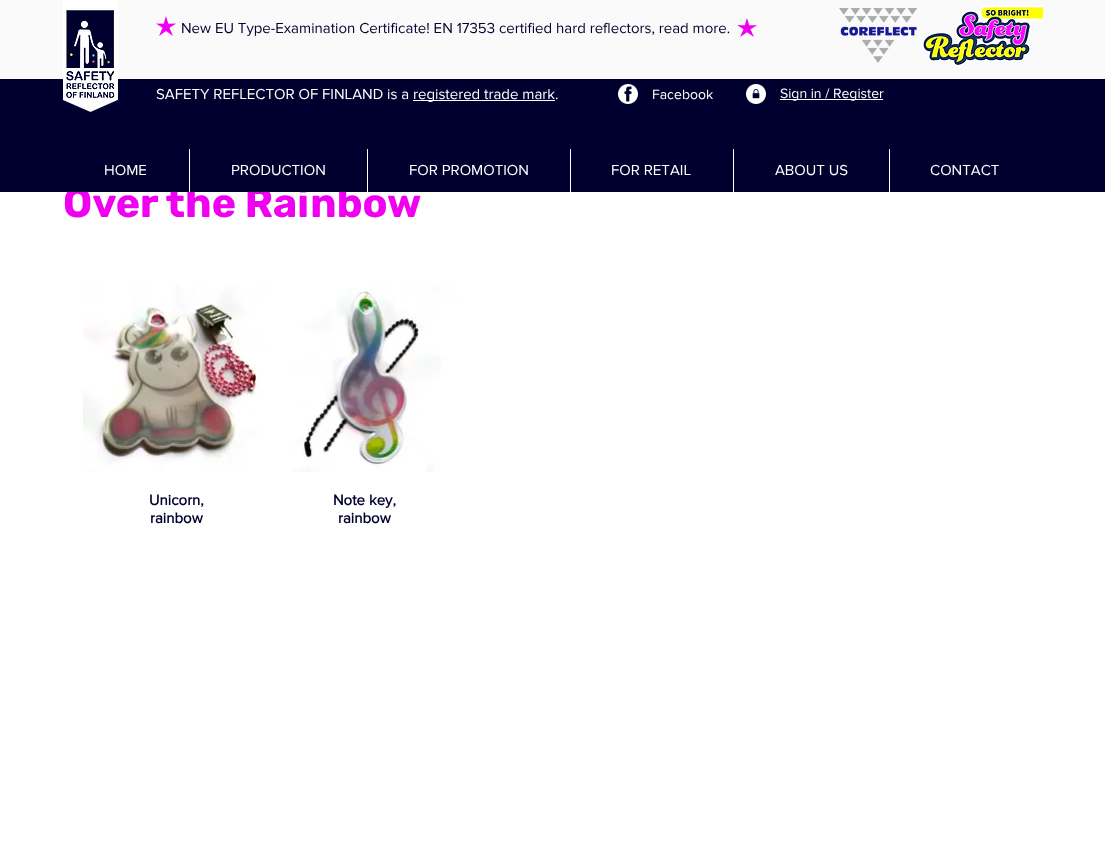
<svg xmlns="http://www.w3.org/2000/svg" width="1105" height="864">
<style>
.a{font:15px 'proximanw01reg';fill:#00002e}
.b{font:bold 41px Rubik;fill:#f000f0}
.c{font:15px 'proximanw01reg';fill:#fff}
.d{font:14px 'proximanw01reg';fill:#fff}
.e{font:bold 15px 'proximanw01reg';fill:#00002e}
</style>
<rect width="100%" height="100%" fill="#fff"/>
<path fill="#fafafa" d="M0 0h1105v79H0z"/>
<image href="2.png" x="156" y="16" width="20" height="20"/>
<image href="3.png" x="737" y="18" width="20" height="19"/>
<image href="4.png" x="839" y="8" width="78" height="55"/>
<image href="5.png" x="922" y="5" width="121" height="62"/>
<image href="8.png" x="83" y="285" width="188" height="187"/>
<image href="9.png" x="271" y="285" width="188" height="187"/>
<text class="a" x="181" y="33">New EU Type-Examination Certificate! EN 17353 certified hard reflectors, read more.</text>
<text class="b" x="63" y="217">Over the Rainbow</text>
<path fill="#00002e" d="M0 79h1105v113H0z"/>
<image href="1.png" x="63" y="0" width="55" height="112"/>
<text class="c" x="930" y="175">CONTACT</text>
<path fill="#fff" d="M889 149h1v43H889z"/>
<text class="c" x="775" y="175">ABOUT US</text>
<path fill="#fff" d="M733 149h1v43H733z"/>
<text class="c" x="611" y="175">FOR RETAIL</text>
<path fill="#fff" d="M570 149h1v43H570z"/>
<text class="c" x="409" y="175">FOR PROMOTION</text>
<path fill="#fff" d="M367 149h1v43H367z"/>
<text class="c" x="231" y="175">PRODUCTION</text>
<path fill="#fff" d="M189 149h1v43H189z"/>
<text class="c" x="104" y="175">HOME</text>
<path fill="#fff" d="M780 99h103v1H780z"/>
<text class="d" x="780" y="98">Sign in / Register</text>
<image href="7.png" x="746" y="84" width="20" height="20"/>
<text class="d" x="652" y="99">Facebook</text>
<image href="6.png" x="618" y="84" width="20" height="20"/>
<path fill="#fff" d="M413 100h142v1H413z"/>
<text class="c" x="413" y="99">registered trade mark.</text>
<text class="c" x="156" y="99">SAFETY REFLECTOR OF FINLAND is a</text>
<text class="e" x="149" y="505">Unicorn,</text>
<text class="e" x="150" y="523">rainbow</text>
<text class="e" x="333" y="505">Note key,</text>
<text class="e" x="338" y="523">rainbow</text>
</svg>
